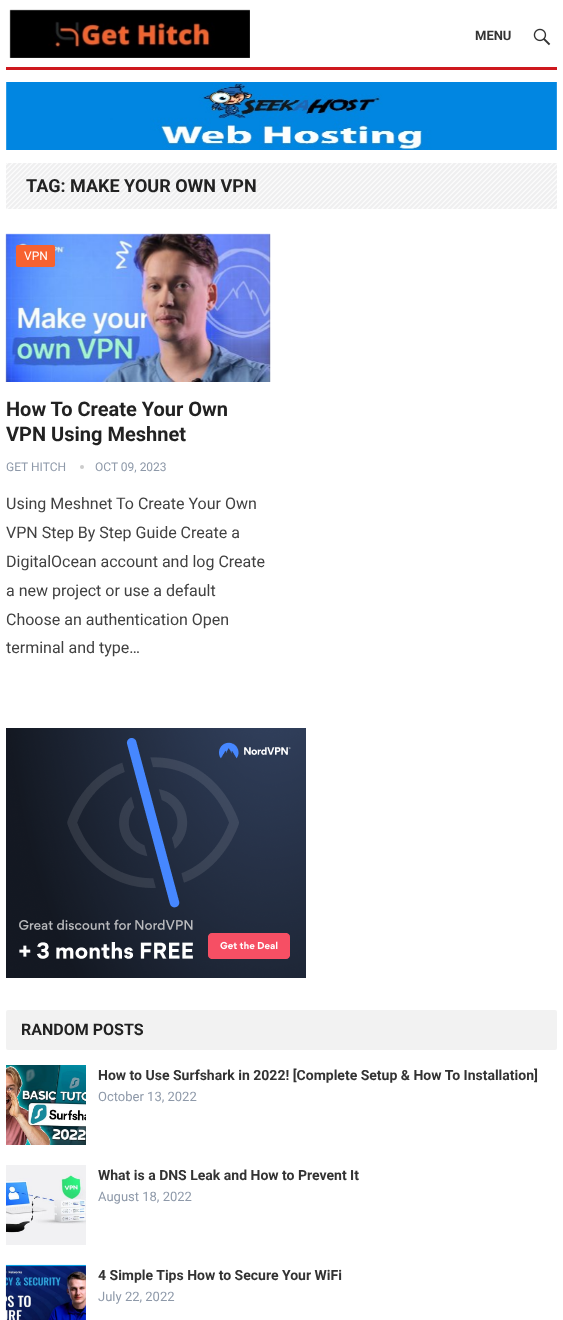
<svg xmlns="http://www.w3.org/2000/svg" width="563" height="1320">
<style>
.a{font:bold 13px Roboto;fill:#333}
.b{font:bold 18px Roboto;fill:#222}
.c{font:12px Roboto;fill:#fff}
.d{font:bold 20px Roboto;fill:#222}
.e{font:12px Roboto;fill:#8e99a9}
.f{font:16px Roboto;fill:#414141}
.g{font:bold 16px Roboto;fill:#222}
.h{font:bold 14px Roboto;fill:#333}
.i{font:13px Roboto;fill:#8e99a9}
</style>
<rect width="100%" height="100%" fill="#fff"/>
<path fill="#ce181e" d="M6 67h551v3H6z"/>
<image href="1.png" x="9" y="9" width="241" height="49"/>
<image href="2.png" x="6" y="82" width="551" height="68"/>
<image href="3.png" x="533" y="28" width="18" height="18"/>
<image href="4.png" x="6" y="163" width="551" height="46"/>
<image href="5.png" x="5" y="233" width="266" height="149"/>
<rect fill="#f76230" x="16" y="245" width="39" height="22" rx="2"/>
<circle fill="#ccc" cx="82" cy="467" r="2"/>
<image href="6.png" x="6" y="728" width="300" height="250"/>
<rect fill="#f2f2f2" x="6" y="1010" width="551" height="40" rx="2"/>
<image href="7.png" x="6" y="1065" width="80" height="80"/>
<image href="8.png" x="6" y="1165" width="80" height="80"/>
<image href="9.png" x="5" y="1264" width="81" height="56"/>
<text class="a" x="475" y="40">MENU</text>
<text class="b" x="26" y="192">TAG: MAKE YOUR OWN VPN</text>
<text class="c" x="24" y="260">VPN</text>
<text class="d" x="6" y="416">How To Create Your Own</text>
<text class="d" x="6" y="441">VPN Using Meshnet</text>
<text class="e" x="6" y="471">GET HITCH</text>
<text class="e" x="95" y="471">OCT 09, 2023</text>
<text class="f" x="6" y="509">Using Meshnet To Create Your Own</text>
<text class="f" x="6" y="538">VPN Step By Step Guide Create a</text>
<text class="f" x="6" y="567">DigitalOcean account and log Create</text>
<text class="f" x="6" y="596">a new project or use a default</text>
<text class="f" x="6" y="625">Choose an authentication Open</text>
<text class="f" x="6" y="653">terminal and type…</text>
<text class="g" x="21" y="1035">RANDOM POSTS</text>
<text class="h" x="98" y="1080">How to Use Surfshark in 2022! [Complete Setup &amp; How To Installation]</text>
<text class="i" x="98" y="1101">October 13, 2022</text>
<text class="h" x="98" y="1180">What is a DNS Leak and How to Prevent It</text>
<text class="i" x="98" y="1201">August 18, 2022</text>
<text class="h" x="98" y="1280">4 Simple Tips How to Secure Your WiFi</text>
<text class="i" x="98" y="1301">July 22, 2022</text>
</svg>
